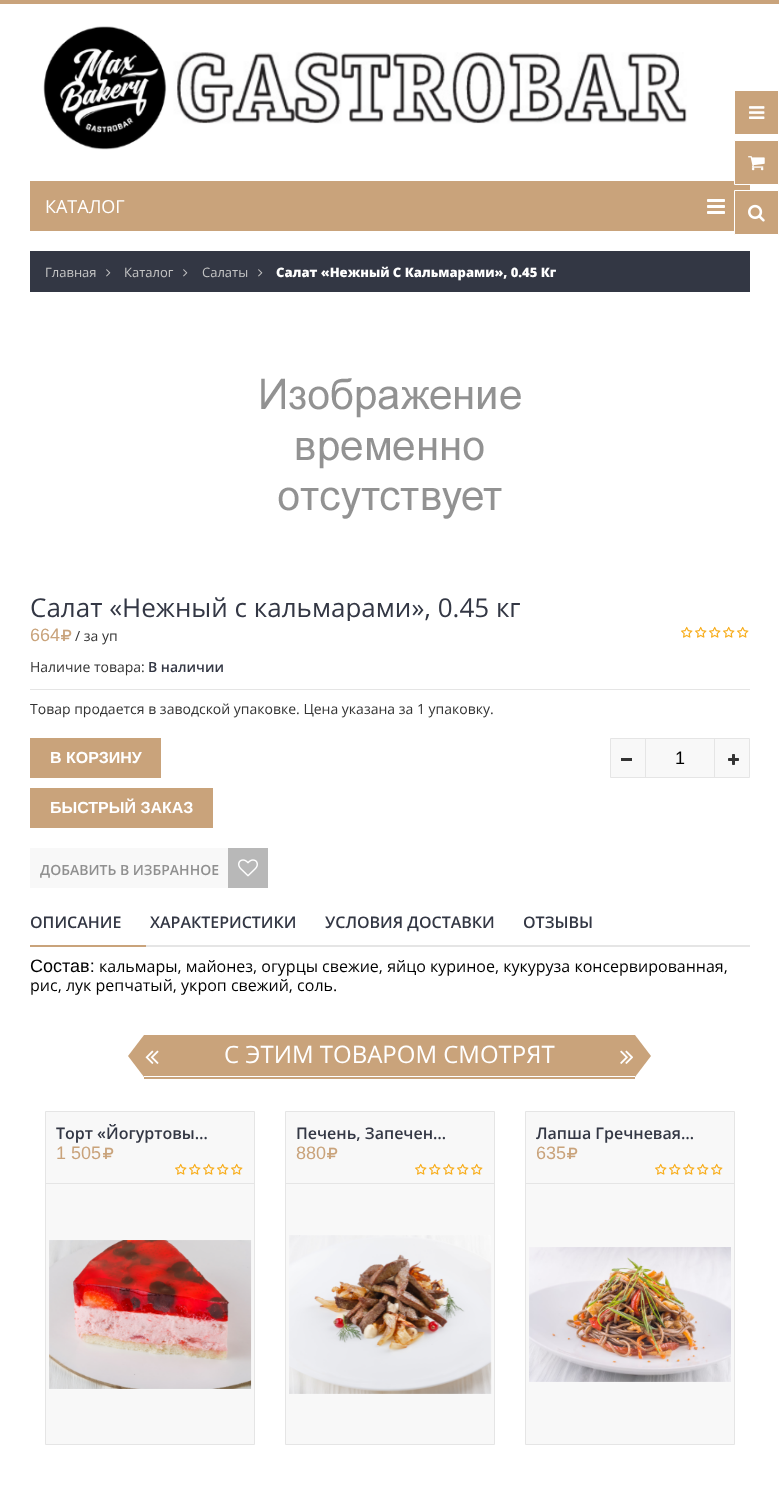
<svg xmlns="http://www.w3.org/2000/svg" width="779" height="1505">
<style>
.a{font:18px Open Sans;fill:#fff}
.b{font:13px Open Sans;fill:#c5c5c5}
.c{font:800 13px Open Sans;fill:#fff}
.d{font:26px Open Sans;fill:#333744}
.e{font:18px Liberation Sans;fill:#c9a37b}
.f{font:14px Open Sans;fill:#333}
.g{font:600 14px Open Sans;fill:#333744}
.h{font:bold 16px Liberation Sans;fill:#fff}
.i{font:18px Liberation Sans;fill:#000}
.j{font:600 14px Open Sans;fill:#909090}
.k{font:600 16px Open Sans;fill:#333744}
.l{font:16px Open Sans;fill:#000}
.m{font:24px Open Sans;fill:#fff}
</style>
<defs>
<clipPath id="clip1"><path d="M30 593h720v28H30z"/></clipPath>
</defs>
<rect width="100%" height="100%" fill="#fff"/>
<path fill="#c9a37b" d="M0 0h779v4H0z"/>
<image href="1.png" x="43" y="26" width="644" height="124"/>
<path fill="#c9a37b" d="M30 181h720v50H30z"/>
<image href="2.png" x="707" y="199" width="18" height="15"/>
<path fill="#c9a37b" d="M735 91h43v43H735z"/>
<image href="3.png" x="749" y="106" width="16" height="13"/>
<path fill="#c9a37b" stroke="#fff" d="M734.5 140.5h44v44H734.5z"/>
<image href="4.png" x="748" y="156" width="17" height="15"/>
<path fill="#c9a37b" stroke="#fff" d="M734.5 190.5h44v44H734.5z"/>
<image href="5.png" x="748" y="204" width="17" height="18"/>
<path fill="#333744" d="M30 251h720v41H30z"/>
<image href="6.png" x="106" y="269" width="5" height="8"/>
<image href="6.png" x="183" y="269" width="5" height="8"/>
<image href="6.png" x="258" y="269" width="5" height="8"/>
<image href="7.png" x="261" y="378" width="260" height="141"/>
<image href="8.png" x="61" y="629" width="11" height="12"/>
<image href="9.png" x="681" y="626" width="68" height="12"/>
<path fill="#e5e5e5" d="M30 689h720v1H30z"/>
<path fill="#c9a37b" d="M30 738h131v40H30z"/>
<path fill="#f8f8f8" stroke="#e5e5e5" d="M610.5 738.5h139v39H610.5z"/>
<path fill="#333" d="M621 758h11v3H621z"/>
<path fill="#e5e5e5" d="M714 739h1v38H714z"/>
<path fill="#e5e5e5" d="M645 739h1v38H645z"/>
<image href="10.png" x="728" y="754" width="11" height="11"/>
<path fill="#c9a37b" d="M30 788h183v40H30z"/>
<path fill="#f8f8f8" d="M30 848h198v40H30z"/>
<path fill="#b8b8b8" d="M228 848h40v40H228z"/>
<image href="11.png" x="238" y="859" width="20" height="18"/>
<path fill="#c9a37b" d="M30 945h116v2H30z"/>
<path fill="#e5e5e5" d="M146 945h604v2H146z"/>
<path fill="#c9a37b" d="M144 1035h491v41H144z"/>
<image href="12.png" x="145" y="1050" width="14" height="14"/>
<path fill="#c9a37b" d="M144 1077h491v2H144z"/>
<path fill="#c9a37b" d="M144 1035v42l-16-21z"/>
<path fill="#c9a37b" d="M635 1077v-42l16 21z"/>
<image href="13.png" x="620" y="1050" width="13" height="14"/>
<path fill="#f8f8f8" stroke="#e5e5e5" d="M45.5 1111.5h209v333H45.5z"/>
<path fill="#e5e5e5" d="M46 1183h208v1H46z"/>
<image href="14.png" x="103" y="1147" width="11" height="12"/>
<image href="15.png" x="175" y="1163" width="68" height="12"/>
<image href="16.png" x="49" y="1240" width="203" height="149"/>
<path fill="#f8f8f8" stroke="#e5e5e5" d="M285.5 1111.5h209v333H285.5z"/>
<path fill="#e5e5e5" d="M286 1183h208v1H286z"/>
<image href="14.png" x="327" y="1147" width="11" height="12"/>
<image href="15.png" x="415" y="1163" width="68" height="12"/>
<image href="17.png" x="289" y="1235" width="203" height="159"/>
<path fill="#f8f8f8" stroke="#e5e5e5" d="M525.5 1111.5h209v333H525.5z"/>
<path fill="#e5e5e5" d="M526 1183h208v1H526z"/>
<image href="14.png" x="567" y="1147" width="11" height="12"/>
<image href="15.png" x="655" y="1163" width="68" height="12"/>
<image href="18.png" x="529" y="1247" width="202" height="135"/>
<text class="a" x="45" y="213">КАТАЛОГ</text>
<text class="b" x="45" y="277">Главная</text>
<text class="b" x="124" y="277">Каталог</text>
<text class="b" x="202" y="277">Салаты</text>
<text class="c" x="276" y="277">Салат «Нежный С Кальмарами», 0.45 Кг</text>
<g clip-path="url(#clip1)">
<text class="d" x="30" y="617">Салат «Нежный с кальмарами», 0.45 кг</text>
</g>
<text class="e" x="30" y="641">664</text>
<text class="f" x="75" y="641">/ за уп</text>
<text class="f" x="30" y="672">Наличие товара:</text>
<text class="g" x="148" y="672">В наличии</text>
<text class="f" x="30" y="714">Товар продается в заводской упаковке. Цена указана за 1 упаковку.</text>
<text class="h" x="50" y="763">В КОРЗИНУ</text>
<text class="i" x="675" y="764">1</text>
<text class="h" x="50" y="813">БЫСТРЫЙ ЗАКАЗ</text>
<text class="j" x="40" y="875">ДОБАВИТЬ В ИЗБРАННОЕ</text>
<text class="k" x="30" y="928">ОПИСАНИЕ</text>
<text class="k" x="150" y="928">ХАРАКТЕРИСТИКИ</text>
<text class="k" x="325" y="928">УСЛОВИЯ ДОСТАВКИ</text>
<text class="k" x="523" y="928">ОТЗЫВЫ</text>
<text class="i" x="30" y="972">Состав:</text>
<text class="l" x="99" y="972">кальмары, майонез, огурцы свежие, яйцо куриное, кукуруза консервированная,</text>
<text class="l" x="30" y="991">рис, лук репчатый, укроп свежий, соль.</text>
<text class="m" x="224" y="1063">С ЭТИМ ТОВАРОМ СМОТРЯТ</text>
<text class="k" x="56" y="1139">Торт «Йогуртовы…</text>
<text class="e" x="56" y="1159">1 505</text>
<text class="k" x="296" y="1139">Печень, Запечен…</text>
<text class="e" x="296" y="1159">880</text>
<text class="k" x="536" y="1139">Лапша Гречневая…</text>
<text class="e" x="536" y="1159">635</text>
</svg>
